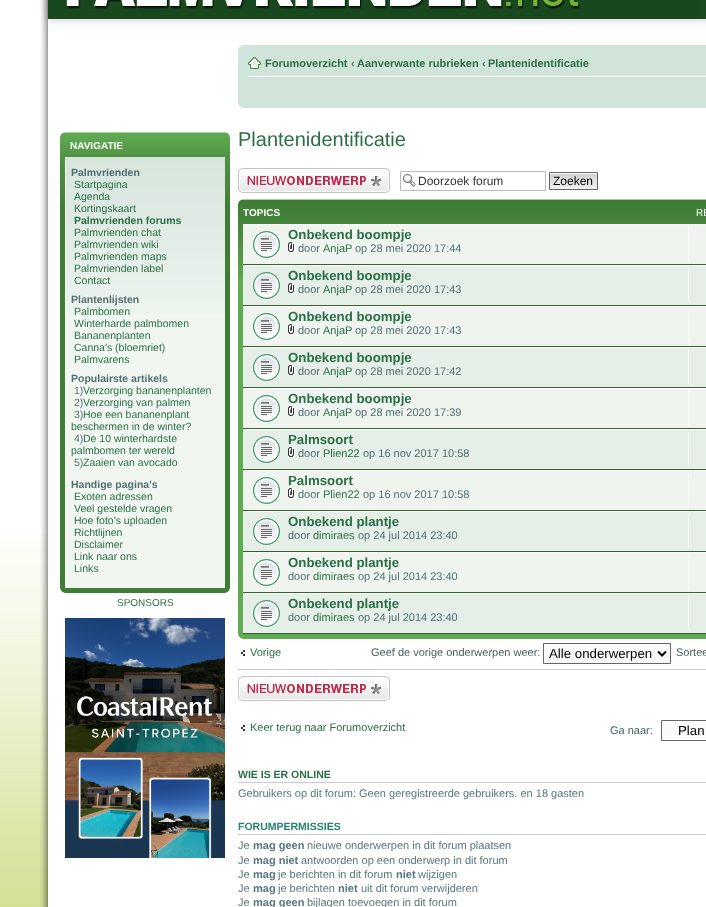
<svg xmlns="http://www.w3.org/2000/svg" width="706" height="907">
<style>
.a{font:bold 10px Liberation Sans;fill:#fff}
.b{font:bold 10.5px Liberation Sans;fill:#516f73}
.c{font:10.5px Liberation Sans;fill:#2a6f46}
.d{font:bold 10.5px Liberation Sans;fill:#2a6f46}
.e{font:10.5px Liberation Sans;fill:#516f73}
.f{font:10px Liberation Sans;fill:#2a6f46}
.g{font:bold 11px Liberation Sans;fill:#2a6f46}
.h{font:bold 11px Liberation Sans;fill:#57757e}
.i{font:20px Liberation Sans;fill:#2a6f46}
.j{font:12px Liberation Sans;fill:#333}
.k{font:12px Liberation Sans;fill:#000}
.l{font:10px Liberation Sans;fill:#fff}
.m{font:bold 13.25px Liberation Sans;fill:#2a6f46}
.n{font:11px Liberation Sans;fill:#516f73}
.o{font:11px Liberation Sans;fill:#2a6f46}
.p{font:11px Liberation Sans;fill:#455f64}
.q{font:13.25px Liberation Sans;fill:#000}
.r{font:11px Liberation Sans;fill:#57757e}
.s{font:bold 10.5px Liberation Sans;fill:#26836d}
</style>
<rect width="100%" height="100%" fill="#fff"/>
<image href="1.png" x="0" y="533" width="48" height="374"/>
<image href="2.png" x="40" y="0" width="666" height="45"/>
<image href="3.png" x="40" y="45" width="666" height="862"/>
<path fill="#3f7c35" d="M60 204h170v389H60z"/>
<image href="4.png" x="60" y="132" width="170" height="72"/>
<image href="5.png" x="60" y="132" width="5" height="5"/>
<image href="6.png" x="225" y="132" width="5" height="5"/>
<path fill="#f1f6f1" d="M66 314h159v274H66z"/>
<image href="7.png" x="66" y="157" width="159" height="157"/>
<path fill="#fff" d="M65 157h1v431H65z"/>
<image href="8.png" x="60" y="588" width="5" height="5"/>
<image href="9.png" x="225" y="588" width="5" height="5"/>
<image href="10.png" x="65" y="618" width="160" height="240"/>
<path fill="#d1e4d9" d="M238 45h468v63H238z"/>
<image href="11.png" x="238" y="45" width="5" height="5"/>
<path fill="#fff" d="M248 76h458v1H248z"/>
<image href="12.png" x="248" y="57" width="13" height="12"/>
<image href="13.png" x="238" y="103" width="5" height="5"/>
<image href="14.png" x="238" y="168" width="152" height="25"/>
<image href="15.png" x="403" y="174" width="13" height="13"/>
<path fill="none" stroke="#b6bebb" d="M400.5 171.5h145v19H400.5z"/>
<image href="16.png" x="550" y="173" width="47" height="16"/>
<path fill="none" stroke="#666" d="M549.5 172.5h48v17H549.5z"/>
<path fill="#60aa53" d="M238 279h468v360H238z"/>
<image href="17.png" x="238" y="199" width="468" height="80"/>
<image href="18.png" x="238" y="199" width="5" height="5"/>
<path fill="#eff4ef" d="M243 225h463v39H243z"/>
<path fill="#fff" d="M243 224h463v1H243z"/>
<path fill="#34642b" d="M243 264h463v1H243z"/>
<image href="19.png" x="253" y="231" width="27" height="27"/>
<image href="20.png" x="288" y="242" width="7" height="10"/>
<path fill="#fff" d="M688 227h1v34H688z"/>
<path fill="#e5eee7" d="M243 266h463v39H243z"/>
<path fill="#fff" d="M243 265h463v1H243z"/>
<path fill="#34642b" d="M243 305h463v1H243z"/>
<image href="21.png" x="253" y="272" width="27" height="27"/>
<image href="22.png" x="288" y="283" width="7" height="10"/>
<path fill="#fff" d="M688 268h1v34H688z"/>
<path fill="#eff4ef" d="M243 307h463v39H243z"/>
<path fill="#fff" d="M243 306h463v1H243z"/>
<path fill="#34642b" d="M243 346h463v1H243z"/>
<image href="19.png" x="253" y="313" width="27" height="27"/>
<image href="20.png" x="288" y="324" width="7" height="10"/>
<path fill="#fff" d="M688 309h1v34H688z"/>
<path fill="#e5eee7" d="M243 348h463v39H243z"/>
<path fill="#fff" d="M243 347h463v1H243z"/>
<path fill="#34642b" d="M243 387h463v1H243z"/>
<image href="21.png" x="253" y="354" width="27" height="27"/>
<image href="22.png" x="288" y="365" width="7" height="10"/>
<path fill="#fff" d="M688 350h1v34H688z"/>
<path fill="#eff4ef" d="M243 389h463v39H243z"/>
<path fill="#fff" d="M243 388h463v1H243z"/>
<path fill="#34642b" d="M243 428h463v1H243z"/>
<image href="19.png" x="253" y="395" width="27" height="27"/>
<image href="20.png" x="288" y="406" width="7" height="10"/>
<path fill="#fff" d="M688 391h1v34H688z"/>
<path fill="#e5eee7" d="M243 430h463v39H243z"/>
<path fill="#fff" d="M243 429h463v1H243z"/>
<path fill="#34642b" d="M243 469h463v1H243z"/>
<image href="21.png" x="253" y="436" width="27" height="27"/>
<image href="22.png" x="288" y="447" width="7" height="10"/>
<path fill="#fff" d="M688 432h1v34H688z"/>
<path fill="#eff4ef" d="M243 471h463v39H243z"/>
<path fill="#fff" d="M243 470h463v1H243z"/>
<path fill="#34642b" d="M243 510h463v1H243z"/>
<image href="19.png" x="253" y="477" width="27" height="27"/>
<image href="20.png" x="288" y="488" width="7" height="10"/>
<path fill="#fff" d="M688 473h1v34H688z"/>
<path fill="#e5eee7" d="M243 512h463v39H243z"/>
<path fill="#fff" d="M243 511h463v1H243z"/>
<path fill="#34642b" d="M243 551h463v1H243z"/>
<image href="21.png" x="253" y="518" width="27" height="27"/>
<path fill="#fff" d="M688 514h1v34H688z"/>
<path fill="#eff4ef" d="M243 553h463v39H243z"/>
<path fill="#fff" d="M243 552h463v1H243z"/>
<path fill="#34642b" d="M243 592h463v1H243z"/>
<image href="19.png" x="253" y="559" width="27" height="27"/>
<path fill="#fff" d="M688 555h1v34H688z"/>
<path fill="#e5eee7" d="M243 594h463v39H243z"/>
<path fill="#fff" d="M243 593h463v1H243z"/>
<path fill="#34642b" d="M243 633h463v1H243z"/>
<image href="21.png" x="253" y="600" width="27" height="27"/>
<path fill="#fff" d="M688 596h1v34H688z"/>
<image href="23.png" x="238" y="634" width="5" height="5"/>
<image href="24.png" x="241" y="650" width="4" height="6"/>
<path fill="#fafafa" stroke="#666" d="M543.5 643.5h127v20H543.5z"/>
<path fill="none" stroke="#000" stroke-width="2" d="M658 651.5l4 4l4-4"/>
<path fill="#ccc" d="M238 669h468v1H238z"/>
<image href="14.png" x="238" y="676" width="152" height="25"/>
<image href="24.png" x="241" y="725" width="4" height="6"/>
<path fill="#fafafa" stroke="#666" d="M661.5 720.5h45v20H661.5z"/>
<path fill="#ccc" d="M238 782h468v1H238z"/>
<path fill="#ccc" d="M238 834h468v1H238z"/>
<text class="a" x="70" y="149">NAVIGATIE</text>
<text class="b" x="71" y="176">Palmvrienden</text>
<text class="c" x="74" y="188">Startpagina</text>
<text class="c" x="74" y="200">Agenda</text>
<text class="c" x="74" y="212">Kortingskaart</text>
<text class="d" x="74" y="224">Palmvrienden forums</text>
<text class="c" x="74" y="236">Palmvrienden chat</text>
<text class="c" x="74" y="248">Palmvrienden wiki</text>
<text class="c" x="74" y="260">Palmvrienden maps</text>
<text class="c" x="74" y="272">Palmvrienden label</text>
<text class="c" x="74" y="284">Contact</text>
<text class="b" x="71" y="303">Plantenlijsten</text>
<text class="c" x="74" y="315">Palmbomen</text>
<text class="c" x="74" y="327">Winterharde palmbomen</text>
<text class="c" x="74" y="339">Bananenplanten</text>
<text class="c" x="74" y="351">Canna's (bloemriet)</text>
<text class="c" x="74" y="363">Palmvarens</text>
<text class="b" x="71" y="382">Populairste artikels</text>
<text class="e" x="74" y="394">1)</text>
<text class="c" x="83" y="394">Verzorging bananenplanten</text>
<text class="e" x="74" y="406">2)</text>
<text class="c" x="83" y="406">Verzorging van palmen</text>
<text class="e" x="74" y="418">3)</text>
<text class="c" x="83" y="418">Hoe een bananenplant</text>
<text class="c" x="71" y="430">beschermen in de winter?</text>
<text class="e" x="74" y="442">4)</text>
<text class="c" x="83" y="442">De 10 winterhardste</text>
<text class="c" x="71" y="454">palmbomen ter wereld</text>
<text class="e" x="74" y="466">5)</text>
<text class="c" x="83" y="466">Zaaien van avocado</text>
<text class="b" x="71" y="488">Handige pagina's</text>
<text class="c" x="74" y="500">Exoten adressen</text>
<text class="c" x="74" y="512">Veel gestelde vragen</text>
<text class="c" x="74" y="524">Hoe foto's uploaden</text>
<text class="c" x="74" y="536">Richtlijnen</text>
<text class="c" x="74" y="548">Disclaimer</text>
<text class="c" x="74" y="560">Link naar ons</text>
<text class="c" x="74" y="572">Links</text>
<text class="f" x="117" y="606">SPONSORS</text>
<text class="g" x="265" y="67">Forumoverzicht</text>
<text class="h" x="351" y="67">‹</text>
<text class="g" x="357" y="67">Aanverwante rubrieken</text>
<text class="h" x="482" y="67">‹</text>
<text class="g" x="488" y="67">Plantenidentificatie</text>
<text class="i" x="238" y="146">Plantenidentificatie</text>
<text class="j" x="418" y="185">Doorzoek forum</text>
<text class="k" x="553" y="185">Zoeken</text>
<text class="a" x="243" y="216">TOPICS</text>
<text class="l" x="696" y="216">RE</text>
<text class="m" x="288" y="239">Onbekend boompje</text>
<text class="n" x="298" y="252">door</text>
<text class="o" x="323" y="252">AnjaP</text>
<text class="n" x="355" y="252">op 28 mei 2020 17:44</text>
<text class="m" x="288" y="280">Onbekend boompje</text>
<text class="n" x="298" y="293">door</text>
<text class="o" x="323" y="293">AnjaP</text>
<text class="n" x="355" y="293">op 28 mei 2020 17:43</text>
<text class="m" x="288" y="321">Onbekend boompje</text>
<text class="n" x="298" y="334">door</text>
<text class="o" x="323" y="334">AnjaP</text>
<text class="n" x="355" y="334">op 28 mei 2020 17:43</text>
<text class="m" x="288" y="362">Onbekend boompje</text>
<text class="n" x="298" y="375">door</text>
<text class="o" x="323" y="375">AnjaP</text>
<text class="n" x="355" y="375">op 28 mei 2020 17:42</text>
<text class="m" x="288" y="403">Onbekend boompje</text>
<text class="n" x="298" y="416">door</text>
<text class="o" x="323" y="416">AnjaP</text>
<text class="n" x="355" y="416">op 28 mei 2020 17:39</text>
<text class="m" x="288" y="444">Palmsoort</text>
<text class="n" x="298" y="457">door</text>
<text class="o" x="323" y="457">Plien22</text>
<text class="n" x="363" y="457">op 16 nov 2017 10:58</text>
<text class="m" x="288" y="485">Palmsoort</text>
<text class="n" x="298" y="498">door</text>
<text class="o" x="323" y="498">Plien22</text>
<text class="n" x="363" y="498">op 16 nov 2017 10:58</text>
<text class="m" x="288" y="526">Onbekend plantje</text>
<text class="n" x="288" y="539">door</text>
<text class="o" x="313" y="539">dimiraes</text>
<text class="n" x="358" y="539">op 24 jul 2014 23:40</text>
<text class="m" x="288" y="567">Onbekend plantje</text>
<text class="n" x="288" y="580">door</text>
<text class="o" x="313" y="580">dimiraes</text>
<text class="n" x="358" y="580">op 24 jul 2014 23:40</text>
<text class="m" x="288" y="608">Onbekend plantje</text>
<text class="n" x="288" y="621">door</text>
<text class="o" x="313" y="621">dimiraes</text>
<text class="n" x="358" y="621">op 24 jul 2014 23:40</text>
<text class="o" x="250" y="656">Vorige</text>
<text class="p" x="371" y="656">Geef de vorige onderwerpen weer:</text>
<text class="q" x="549" y="658">Alle onderwerpen</text>
<text class="p" x="676" y="656">Sortee</text>
<text class="o" x="250" y="731">Keer terug naar Forumoverzicht</text>
<text class="p" x="610" y="734">Ga naar:</text>
<text class="q" x="678" y="735">Plan</text>
<text class="d" x="238" y="778">WIE IS ER ONLINE</text>
<text class="r" x="238" y="797">Gebruikers op dit forum: Geen geregistreerde gebruikers. en 18 gasten</text>
<text class="s" x="238" y="830">FORUMPERMISSIES</text>
<text class="r" x="238" y="849">Je</text>
<text class="h" x="253" y="849">mag geen</text>
<text class="r" x="307" y="849">nieuwe onderwerpen in dit forum plaatsen</text>
<text class="r" x="238" y="864">Je</text>
<text class="h" x="253" y="864">mag niet</text>
<text class="r" x="301" y="864">antwoorden op een onderwerp in dit forum</text>
<text class="r" x="238" y="878">Je</text>
<text class="h" x="253" y="878">mag</text>
<text class="r" x="278" y="878">je berichten in dit forum</text>
<text class="h" x="396" y="878">niet</text>
<text class="r" x="418" y="878">wijzigen</text>
<text class="r" x="238" y="892">Je</text>
<text class="h" x="253" y="892">mag</text>
<text class="r" x="278" y="892">je berichten</text>
<text class="h" x="338" y="892">niet</text>
<text class="r" x="361" y="892">uit dit forum verwijderen</text>
<text class="r" x="238" y="906">Je</text>
<text class="h" x="253" y="906">mag geen</text>
<text class="r" x="307" y="906">bijlagen toevoegen in dit forum</text>
</svg>
